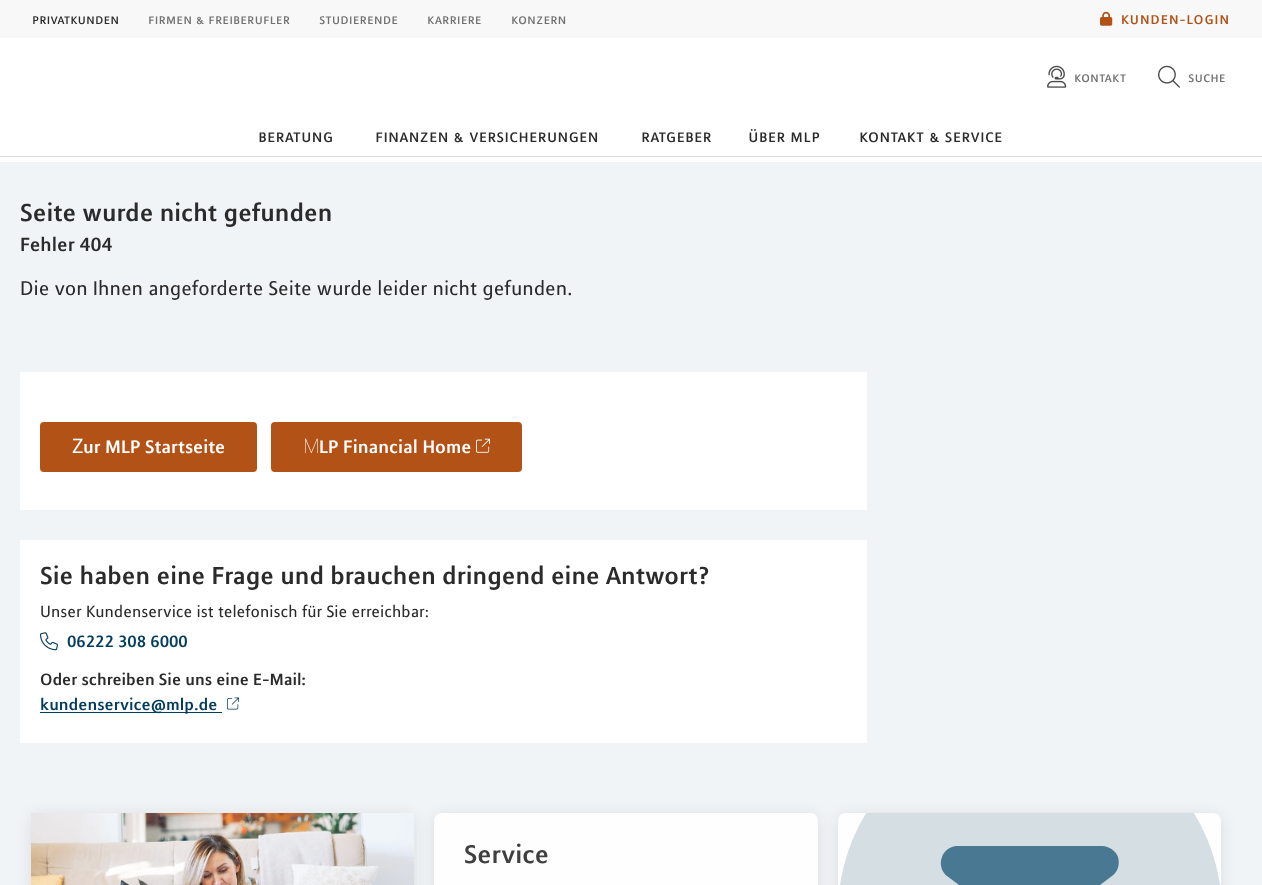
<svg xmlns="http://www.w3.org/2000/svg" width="1262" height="885">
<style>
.a{font:16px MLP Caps;fill:#2b2b2b}
.b{font:16px MLP Caps;fill:#717171}
.c{font:bold 14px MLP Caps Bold;letter-spacing:1px;fill:#b25217}
.d{font:20px MLP Caps;fill:#2b2b2b}
.e{font:bold 27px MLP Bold;fill:#2b2b2b}
.f{font:bold 21px MLP Bold;fill:#2b2b2b}
.g{font:22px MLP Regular;fill:#2b2b2b}
.h{font:20px Noto Sans;fill:#fff}
.i{font:bold 20px MLP Bold;fill:#fff}
.j{font:100 20px Noto Sans;fill:#fff}
.k{font:18px MLP Regular;fill:#2b2b2b}
.l{font:bold 18px MLP Bold;fill:#033d5d}
.m{font:bold 18px MLP Bold;fill:#2b2b2b}
.n{font:bold 28px MLP Bold;fill:#3f3f3f}
</style>
<defs>
<clipPath id="clip1"><path d="M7 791h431v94h-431zm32 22h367c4.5 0 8 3.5 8 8v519c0 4.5-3.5 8-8 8h-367c-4.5 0-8-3.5-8-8v-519c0-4.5 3.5-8 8-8z" clip-rule="evenodd"/></clipPath>
<clipPath id="clip2"><path d="M838 813h383v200H838z"/></clipPath>
</defs>
<rect width="100%" height="100%" fill="#fff"/>
<path fill="#dbdbdb" d="M0 156h1262v1H0z"/>
<path fill="#f8f8f8" d="M0 0h1262v38H0z"/>
<image href="1.png" x="1100" y="11" width="13" height="15"/>
<image href="2.png" x="1047" y="65" width="20" height="23"/>
<image href="3.png" x="1158" y="65" width="22" height="23"/>
<path fill="#f1f4f6" d="M0 162h1262v723H0z"/>
<path fill="#fff" d="M20 372h847v138H20z"/>
<rect fill="#b25217" stroke="#b25217" stroke-width="2" x="41" y="423" width="215" height="48" rx="3"/>
<rect fill="#b25217" stroke="#b25217" stroke-width="2" x="272" y="423" width="249" height="48" rx="3"/>
<image href="4.png" x="476" y="438" width="14" height="15"/>
<path fill="#fff" d="M20 540h847v203H20z"/>
<image href="5.png" x="40" y="632" width="18" height="19"/>
<path fill="#033d5d" d="M40 712h182v1H40z"/>
<image href="6.png" x="227" y="697" width="12" height="13"/>
<g clip-path="url(#clip1)">
<rect fill="#1818191a" filter="blur(7.5px)" x="31" y="815" width="383" height="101" rx="8"/>
</g>
<image href="7.png" x="31" y="813" width="383" height="72"/>
<rect fill="#00000017" filter="blur(7.5px)" x="434" y="815" width="384" height="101" rx="8"/>
<rect fill="#fefefe" x="434" y="813" width="384" height="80" rx="8"/>
<rect fill="#00000017" filter="blur(7.5px)" x="838" y="815" width="383" height="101" rx="8"/>
<rect fill="#fefefe" x="838" y="813" width="383" height="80" rx="8"/>
<g clip-path="url(#clip2)">
<circle fill="#d4dee3" cx="1030" cy="913" r="192"/>
</g>
<path fill="#497893" d="M957 846c-7 0-13 5-15 11c-3 7 0 15 5 19l76 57c4 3 10 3 13 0l76-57c6-4 8-12 6-19c-2-6-9-11-16-11zm-16 39v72c0 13 10 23 22 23h134c12 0 22-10 22-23v-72l-76 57c-8 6-19 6-27 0z"/>
<text class="a" x="32" y="24">privatkunden</text>
<text class="b" x="148" y="24">firmen &amp; freiberufler</text>
<text class="b" x="319" y="24">studierende</text>
<text class="b" x="427" y="24">karriere</text>
<text class="b" x="511" y="24">konzern</text>
<text class="c" x="1121" y="24">KUNDEN-LOGIN</text>
<text class="b" x="1074" y="82">kontakt</text>
<text class="b" x="1188" y="82">suche</text>
<text class="d" x="258" y="142">beratung</text>
<text class="d" x="375" y="142">finanzen &amp; versicherungen</text>
<text class="d" x="641" y="142">ratgeber</text>
<text class="d" x="748" y="142">über mlp</text>
<text class="d" x="859" y="142">kontakt &amp; service</text>
<text class="e" x="20" y="221">Seite wurde nicht gefunden</text>
<text class="f" x="20" y="251">Fehler 404</text>
<text class="g" x="20" y="295">Die von Ihnen angeforderte Seite wurde leider nicht gefunden.</text>
<text class="h" x="72" y="453">Z</text>
<text class="i" x="83" y="453">ur MLP Startseite</text>
<text class="j" x="303" y="453">M</text>
<text class="i" x="319" y="453">LP Financial Home</text>
<text class="e" x="40" y="584">Sie haben eine Frage und brauchen dringend eine Antwort?</text>
<text class="k" x="40" y="617">Unser Kundenservice ist telefonisch für Sie erreichbar:</text>
<text class="l" x="67" y="647">06222 308 6000</text>
<text class="m" x="40" y="685">Oder schreiben Sie uns eine E-Mail:</text>
<text class="l" x="40" y="710">kundenservice@mlp.de</text>
<text class="n" x="464" y="863">Service</text>
</svg>
